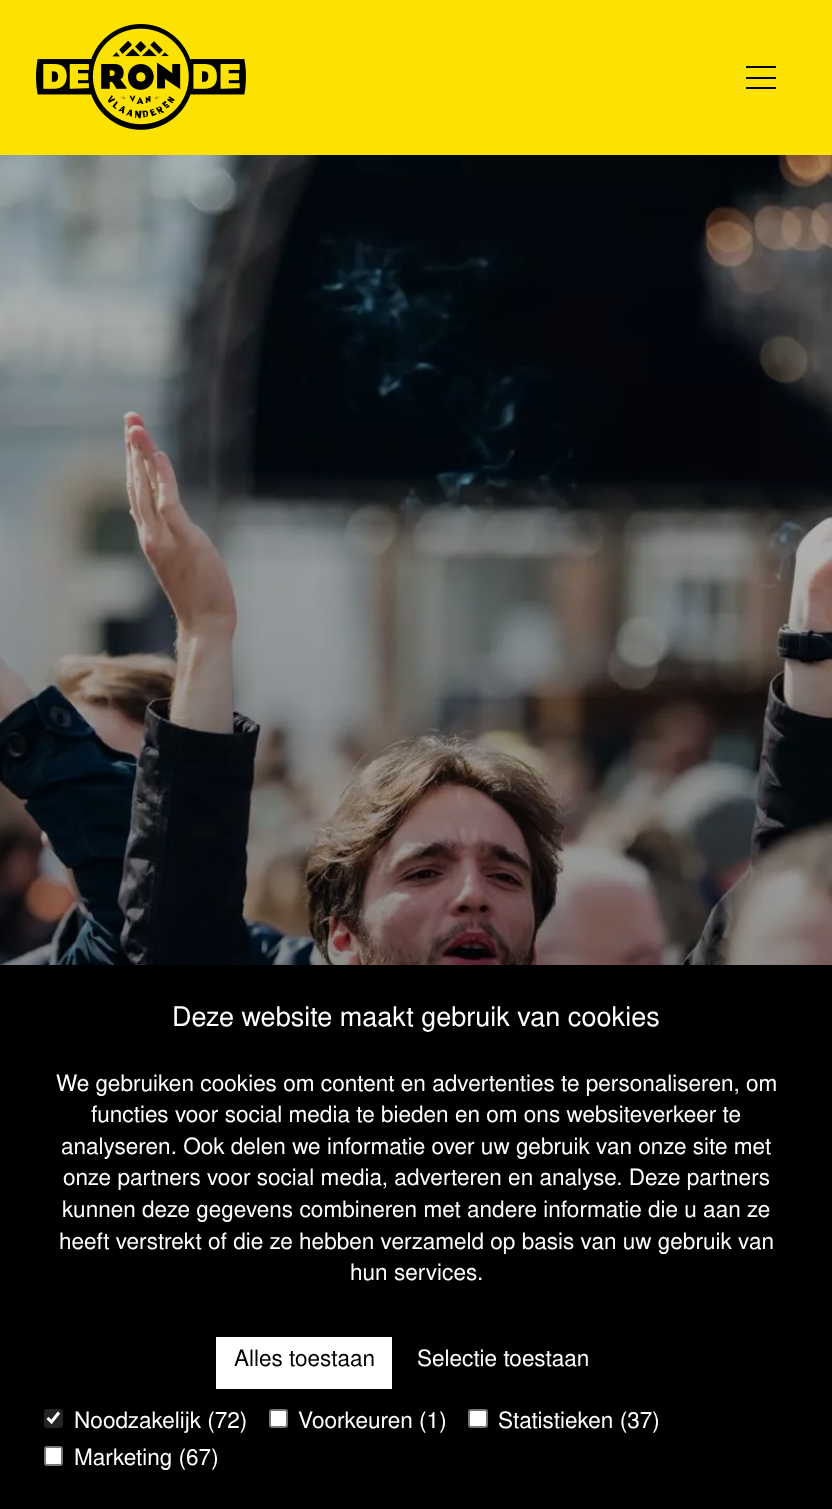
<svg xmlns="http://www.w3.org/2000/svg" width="832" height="1509">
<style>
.a{font:27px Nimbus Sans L;fill:#fff}
.b{font:22.55px Nimbus Sans L;fill:#fff}
.c{font:22.55px Nimbus Sans L;fill:#000}
</style>
<rect width="100%" height="100%" fill="#fff"/>
<path fill="#fce201" d="M0 0h832v155H0z"/>
<image href="1.png" x="36" y="24" width="210" height="106"/>
<path fill="#000" d="M746 66h30v2H746z"/>
<path fill="#000" d="M746 77h30v2H746z"/>
<path fill="#000" d="M746 87h30v2H746z"/>
<image href="2.png" x="0" y="155" width="832" height="810"/>
<path fill="#000" d="M0 965h832v544H0z"/>
<path fill="#fff" d="M216 1337h176v52H216z"/>
<rect fill="#232323" x="44" y="1409" width="19" height="19" rx="3"/>
<path fill="none" stroke="#fff" stroke-width="3.1" d="M47.5 1418l4 4l7.5-9.5"/>
<rect fill="#fff" stroke="#767676" stroke-width="2" x="270" y="1410" width="17" height="17" rx="2"/>
<rect fill="#fff" stroke="#767676" stroke-width="2" x="469" y="1410" width="18" height="17" rx="2"/>
<rect fill="#fff" stroke="#767676" stroke-width="2" x="45" y="1447" width="17" height="18" rx="2"/>
<text class="a" x="172" y="1026">Deze website maakt gebruik van cookies</text>
<text class="b" x="56" y="1091">We gebruiken cookies om content en advertenties te personaliseren, om</text>
<text class="b" x="91" y="1122">functies voor social media te bieden en om ons websiteverkeer te</text>
<text class="b" x="61" y="1154">analyseren. Ook delen we informatie over uw gebruik van onze site met</text>
<text class="b" x="63" y="1185">onze partners voor social media, adverteren en analyse. Deze partners</text>
<text class="b" x="62" y="1217">kunnen deze gegevens combineren met andere informatie die u aan ze</text>
<text class="b" x="59" y="1249">heeft verstrekt of die ze hebben verzameld op basis van uw gebruik van</text>
<text class="b" x="350" y="1280">hun services.</text>
<text class="c" x="234" y="1366">Alles toestaan</text>
<text class="b" x="417" y="1366">Selectie toestaan</text>
<text class="b" x="74" y="1428">Noodzakelijk (72)</text>
<text class="b" x="298" y="1428">Voorkeuren (1)</text>
<text class="b" x="498" y="1428">Statistieken (37)</text>
<text class="b" x="74" y="1465">Marketing (67)</text>
</svg>
